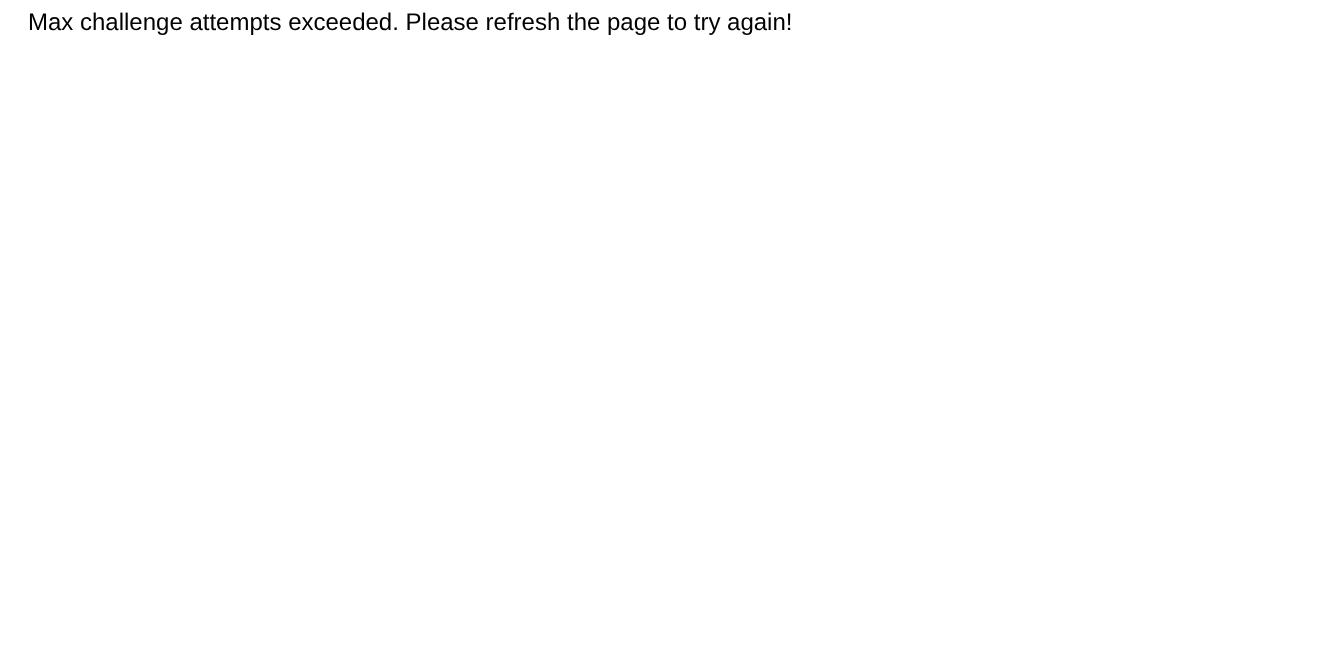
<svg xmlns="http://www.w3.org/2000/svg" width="1337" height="647">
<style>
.a{font:24px Liberation Sans;fill:#000}
</style>
<rect width="100%" height="100%" fill="#fff"/>
<text class="a" x="28" y="30">Max challenge attempts exceeded. Please refresh the page to try again!</text>
</svg>
